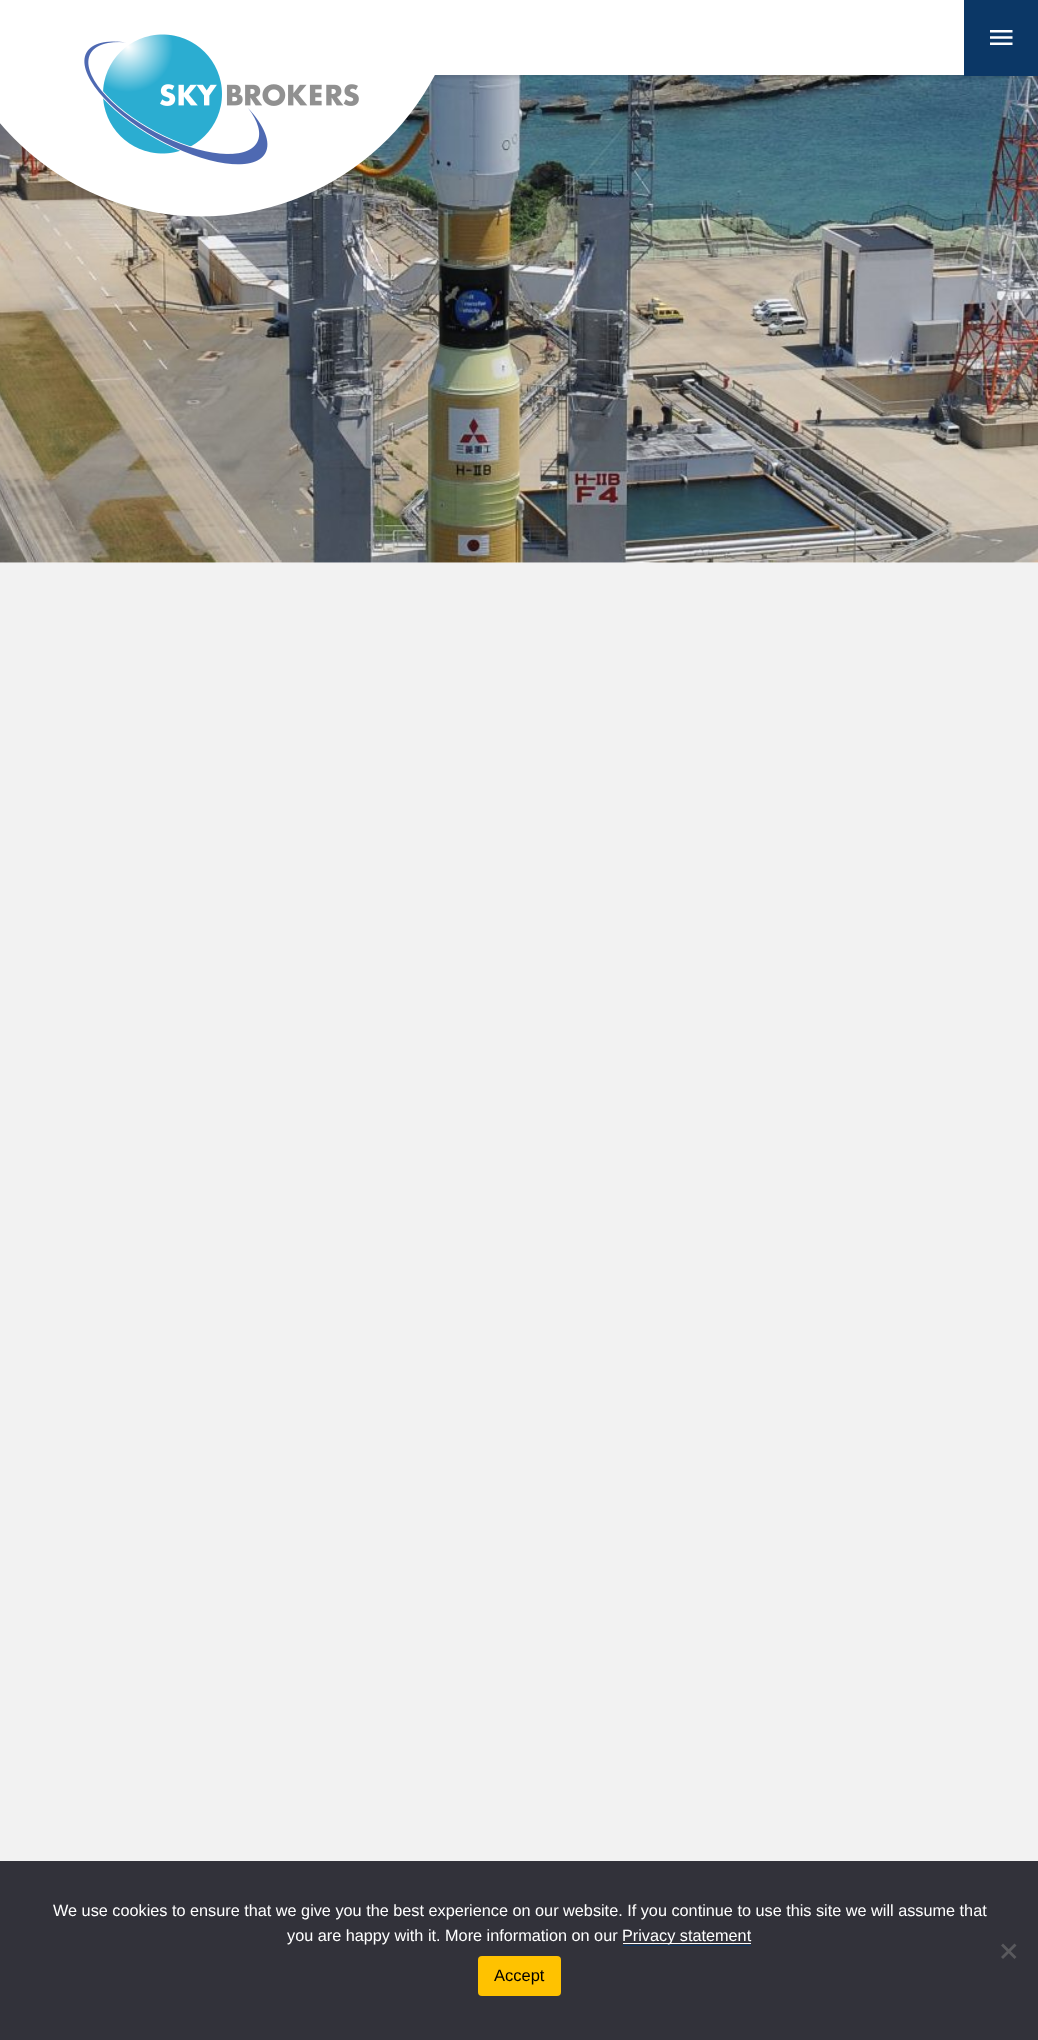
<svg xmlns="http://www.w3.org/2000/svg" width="1038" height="2040">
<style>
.a{font:16.25px Liberation Sans;fill:#fff}
.b{font:16.5px Liberation Sans;fill:#000}
</style>
<rect width="100%" height="100%" fill="#f2f2f2"/>
<path fill="#fff" d="M0 562h1038v1H0z"/>
<image href="2.png" x="0" y="75" width="1038" height="488"/>
<path fill="#0000001a" filter="blur(1px)" d="M0 3h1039v75H0z"/>
<path fill="#fff" d="M0 0h964v75H0z"/>
<image href="1.png" x="0" y="34" width="435" height="183"/>
<path fill="#0b3766" d="M964 0h74v76H964z"/>
<image href="3.png" x="990" y="30" width="23" height="15"/>
<path fill="#32323a" d="M0 1861h1038v179H0z"/>
<path fill="#0b3766" d="M623 1945h128v1H623z"/>
<path fill="#fff" d="M623 1943h128v1H623z"/>
<path fill="#59595d" d="M1014.5 1943.5l2 2l-13.5 13.5l-2-2z"/>
<path fill="#59595d" d="M1001 1945.5l2-2l13.5 13.5l-2 2z"/>
<rect fill="#ffc200" x="478" y="1956" width="83" height="40" rx="4"/>
<text class="a" x="53" y="1916">We use cookies to ensure that we give you the best experience on our website. If you continue to use this site we will assume that</text>
<text class="a" x="287" y="1941">you are happy with it. More information on our</text>
<text class="a" x="622" y="1941">Privacy statement</text>
<text class="b" x="494" y="1981">Accept</text>
</svg>
